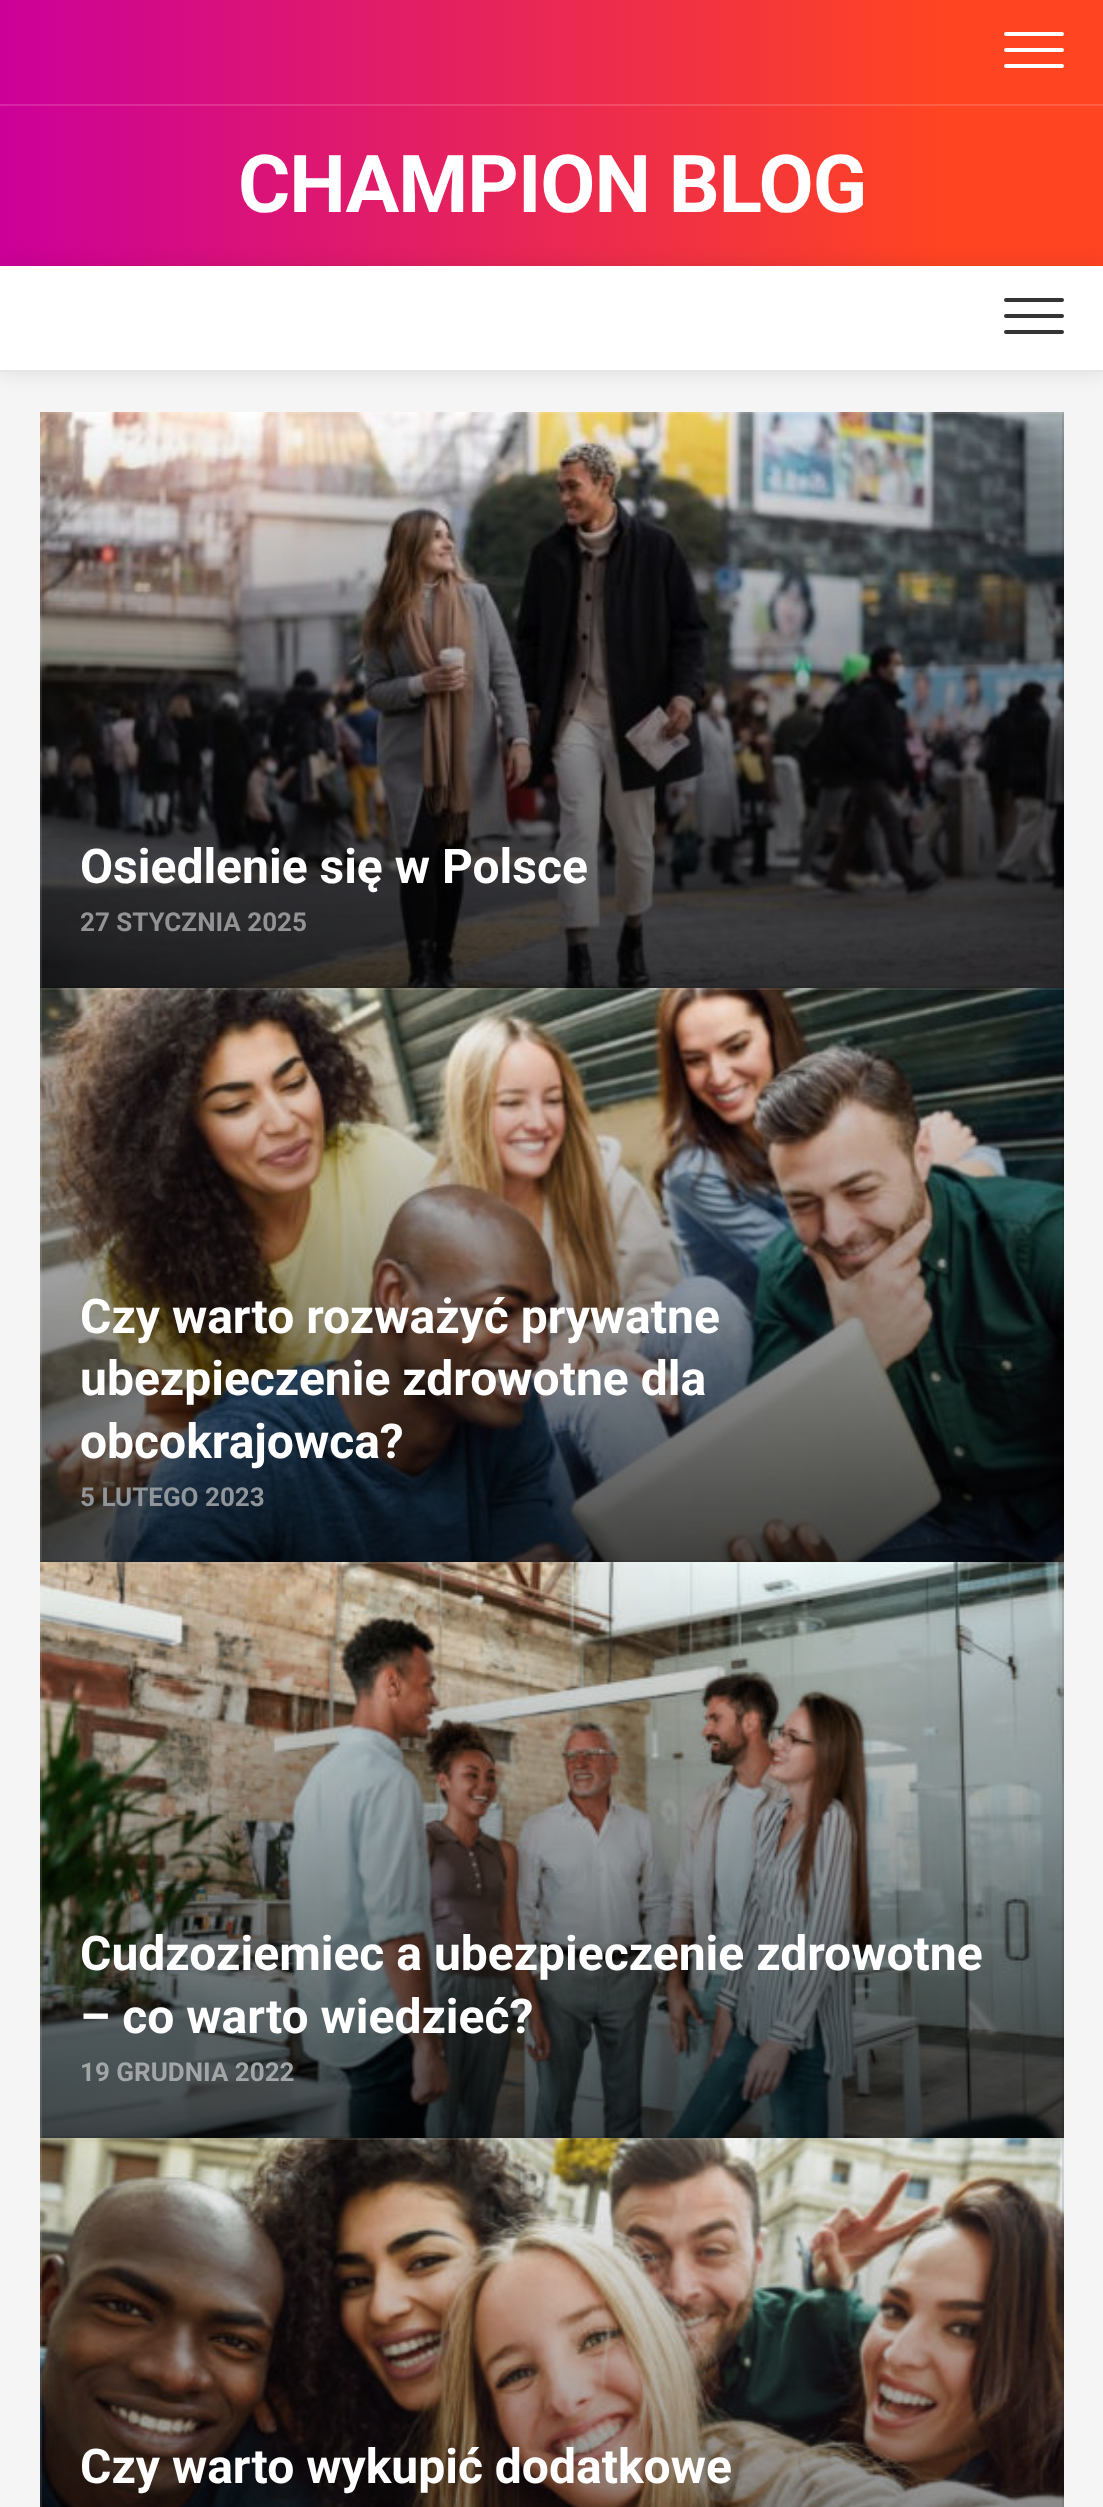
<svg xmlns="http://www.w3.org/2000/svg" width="1103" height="2507">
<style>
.a{font:bold 80px Roboto;letter-spacing:-1px;fill:#fff}
.b{font:bold 48px Roboto;fill:#fff}
.c{font:bold 26px Roboto;fill:#939394}
.d{font:bold 26px Roboto;fill:#90959a}
.e{font:bold 26px Roboto;fill:#a2a6a7}
</style>
<defs>
<linearGradient id="g1" gradientUnits="userSpaceOnUse" x1="0" y1="186" x2="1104" y2="186"><stop offset="0" stop-color="#c09"/><stop offset="0.85" stop-color="#f42"/></linearGradient>
<linearGradient id="g2" gradientUnits="userSpaceOnUse" x1="0" y1="186" x2="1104" y2="186"><stop offset="0" stop-color="#d426a8"/><stop offset="0.85" stop-color="#ff6043"/></linearGradient>
<clipPath id="clip1"><path d="M40 2138h1024v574H40z"/></clipPath>
</defs>
<rect width="100%" height="100%" fill="#fff"/>
<path fill="url(#g1)" d="M0 0h1103v266H0z"/>
<path fill="url(#g2)" d="M0 104h1103v2H0z"/>
<rect fill="#fff" x="1004" y="32" width="60" height="4" rx="2"/>
<rect fill="#fff" x="1004" y="48" width="60" height="4" rx="2"/>
<rect fill="#fff" x="1004" y="64" width="60" height="4" rx="2"/>
<path fill="#f5f5f5" d="M0 372h1103v2135H0z"/>
<path fill="#0000001a" filter="blur(10px)" d="M0 266h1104v106H0z"/>
<path fill="#fff" d="M0 266h1103v104H0z"/>
<path fill="#e6e6e6" d="M0 370h1103v2H0z"/>
<rect fill="#333" x="1004" y="298" width="60" height="4" rx="2"/>
<rect fill="#333" x="1004" y="314" width="60" height="4" rx="2"/>
<rect fill="#333" x="1004" y="330" width="60" height="4" rx="2"/>
<image href="1.png" x="40" y="412" width="1024" height="576"/>
<image href="2.png" x="40" y="988" width="1024" height="574"/>
<image href="3.png" x="40" y="1562" width="1024" height="576"/>
<image href="4.png" x="40" y="2138" width="1024" height="369"/>
<g clip-path="url(#clip1)">
<path fill="#0000001a" fill-rule="evenodd" d="M-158 1940h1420v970h-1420zm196 196h1024v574h-1024z"/>
<path fill="#ffffff1a" fill-rule="evenodd" d="M-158 1940h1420v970h-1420zm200 200h1024v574h-1024z"/>
</g>
<text class="a" x="238" y="212">CHAMPION BLOG</text>
<text class="b" x="80" y="883">Osiedlenie się w Polsce</text>
<text class="c" x="80" y="931">27 STYCZNIA 2025</text>
<text class="b" x="80" y="1333">Czy warto rozważyć prywatne</text>
<text class="b" x="80" y="1395">ubezpieczenie zdrowotne dla</text>
<text class="b" x="80" y="1458">obcokrajowca?</text>
<text class="d" x="80" y="1506">5 LUTEGO 2023</text>
<text class="b" x="80" y="1970">Cudzoziemiec a ubezpieczenie zdrowotne</text>
<text class="b" x="80" y="2033">– co warto wiedzieć?</text>
<text class="e" x="80" y="2081">19 GRUDNIA 2022</text>
<text class="b" x="80" y="2483">Czy warto wykupić dodatkowe</text>
</svg>
